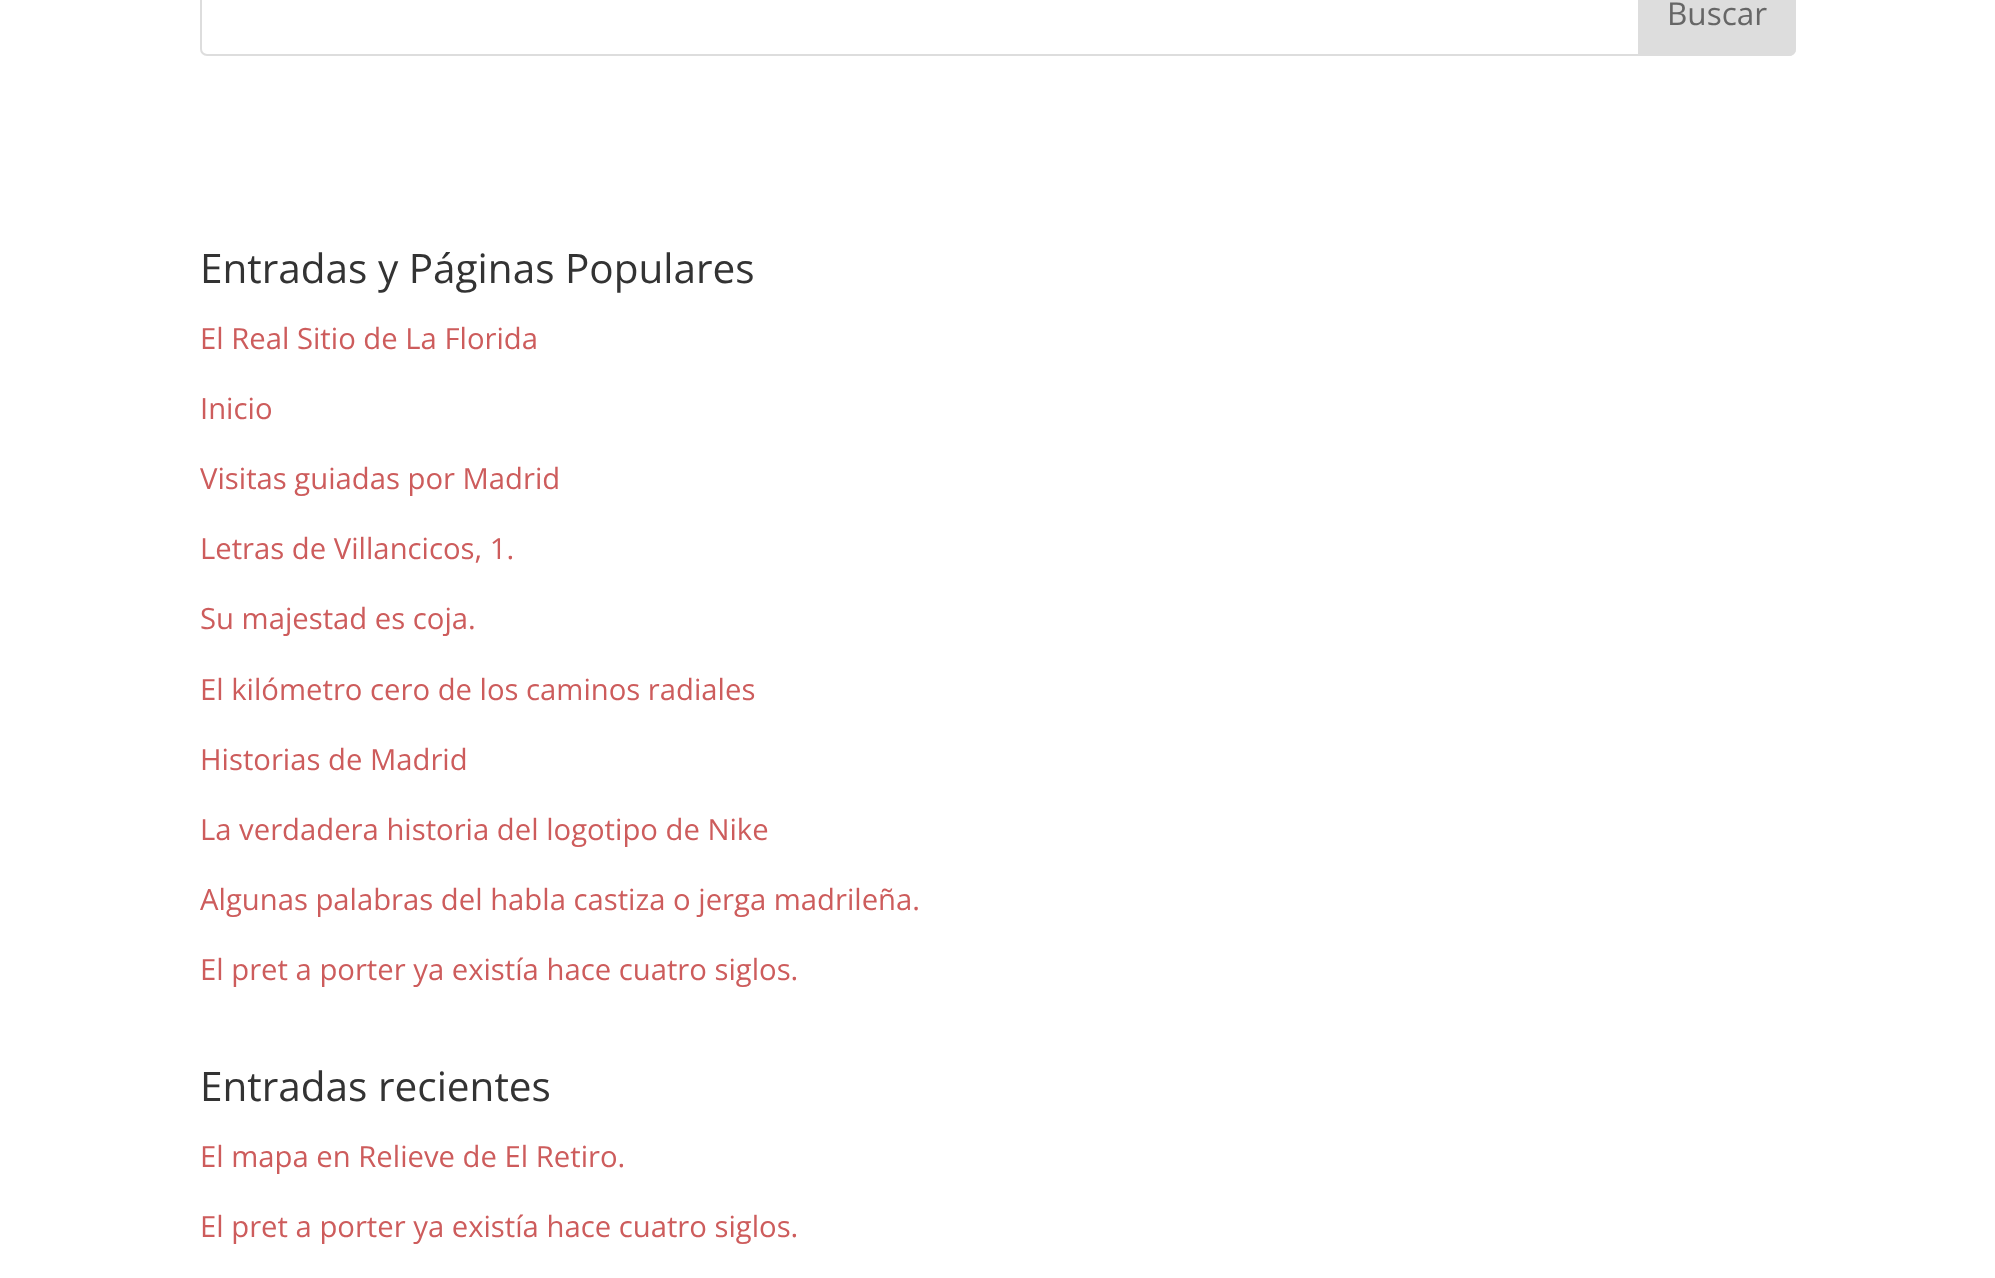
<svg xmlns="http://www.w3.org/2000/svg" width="1995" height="1278">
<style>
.a{font:31.5px Open Sans;fill:#666}
.b{font:40.5px Open Sans;fill:#333}
.c{font:29.25px Open Sans;fill:#cd5c5c}
</style>
<rect width="100%" height="100%" fill="#fff"/>
<rect fill="none" stroke="#ddd" stroke-width="2" x="201" y="-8" width="1594" height="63" rx="6"/>
<path fill="#ddd" stroke="#ddd" stroke-width="2" d="M1639-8h150c3.5 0 6 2.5 6 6v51c0 3.5-2.5 6-6 6h-150z"/>
<text class="a" x="1667" y="25">Buscar</text>
<text class="b" x="200" y="283">Entradas y Páginas Populares</text>
<text class="c" x="200" y="349">El Real Sitio de La Florida</text>
<text class="c" x="200" y="419">Inicio</text>
<text class="c" x="200" y="489">Visitas guiadas por Madrid</text>
<text class="c" x="200" y="559">Letras de Villancicos, 1.</text>
<text class="c" x="200" y="629">Su majestad es coja.</text>
<text class="c" x="200" y="700">El kilómetro cero de los caminos radiales</text>
<text class="c" x="200" y="770">Historias de Madrid</text>
<text class="c" x="200" y="840">La verdadera historia del logotipo de Nike</text>
<text class="c" x="200" y="910">Algunas palabras del habla castiza o jerga madrileña.</text>
<text class="c" x="200" y="980">El pret a porter ya existía hace cuatro siglos.</text>
<text class="b" x="200" y="1101">Entradas recientes</text>
<text class="c" x="200" y="1167">El mapa en Relieve de El Retiro.</text>
<text class="c" x="200" y="1237">El pret a porter ya existía hace cuatro siglos.</text>
</svg>
